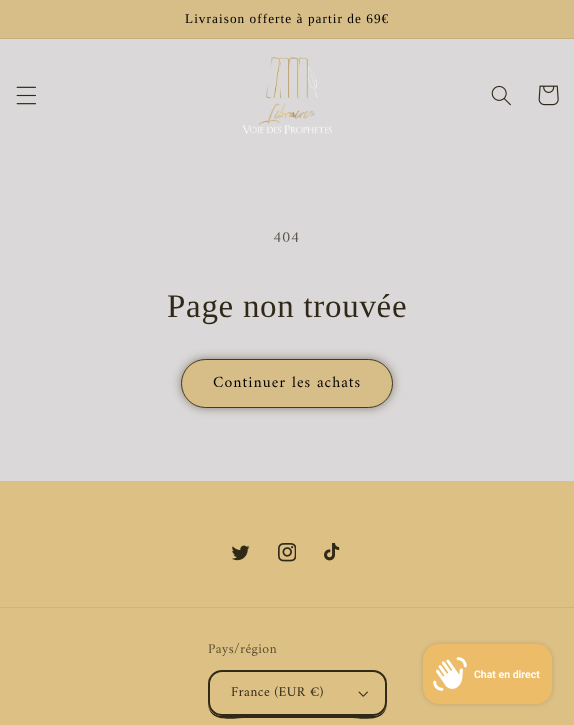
<svg xmlns="http://www.w3.org/2000/svg" width="574" height="725">
<style>*{font-kerning:none!important;font-variant-ligatures:none!important}</style>
<style>
.a{font:13.25px Liberation Serif;letter-spacing:1.05px;fill:#000}
.b{font:15.75px Amiri;letter-spacing:0.5px;fill:#5b5548}
.c{font:33px Liberation Serif;letter-spacing:0.7px;fill:#312918}
.d{font:15.75px Amiri;letter-spacing:1.05px;fill:#000}
.e{font:13.75px Amiri;letter-spacing:0.4px;fill:#5c4f33}
.f{font:13.75px Amiri;letter-spacing:0.4px;fill:#312918}
.g{font:600 10.5px Roboto;fill:#fff}
</style>
<rect width="100%" height="100%" fill="#dad8d8"/>
<path fill="#d7bd88" d="M0 0h574v38H0z"/>
<path fill="#c6ae7d" d="M0 38h574v1H0z"/>
<image href="1.png" x="16" y="86" width="20" height="19"/>
<image href="2.png" x="242" y="57" width="90" height="77"/>
<image href="3.png" x="491" y="85" width="20" height="21"/>
<image href="4.png" x="538" y="85" width="21" height="21"/>
<rect fill="#31291880" filter="blur(5px)" x="181" y="359" width="212" height="49" rx="24.5"/>
<rect fill="#d7bd88" x="181" y="359" width="212" height="49" rx="24.5"/>
<rect fill="none" stroke="#d7bd88" x="181.5" y="359.5" width="211" height="48" rx="24"/>
<rect fill="none" stroke="#000000b3" x="181.5" y="359.5" width="211" height="48" rx="24"/>
<path fill="#ddc084" d="M0 481h574v244H0z"/>
<image href="5.png" x="231" y="545" width="19" height="16"/>
<image href="6.png" x="278" y="543" width="18" height="19"/>
<image href="7.png" x="324" y="543" width="16" height="18"/>
<path fill="#cfb47b" d="M0 607h574v1H0z"/>
<path fill="#312918" d="M208 702c0 22 24 16 39 16h101c15 0 39 6 39-16c0 8-6 14-14 14h-151c-8 0-14-6-14-14z"/>
<rect fill="#ddc084" x="208" y="670" width="179" height="46" rx="14"/>
<image href="8.png" x="358" y="691" width="10" height="6"/>
<rect fill="none" stroke="#312918" stroke-width="2" x="209" y="671" width="177" height="44" rx="13"/>
<rect fill="#00000026" filter="blur(2.5px)" x="423" y="644" width="129" height="60" rx="16"/>
<rect fill="#edbc68" x="423" y="644" width="129" height="60" rx="16"/>
<image href="9.png" x="433" y="657" width="34" height="34"/>
<text class="a" x="185" y="23">Livraison offerte à partir de 69€</text>
<text class="b" x="273" y="242">404</text>
<text class="c" x="167" y="317">Page non trouvée</text>
<text class="d" x="213" y="387">Continuer les achats</text>
<text class="e" x="208" y="653">Pays/région</text>
<text class="f" x="231" y="696">France (EUR €)</text>
<text class="g" x="474" y="678">Chat en direct</text>
</svg>
